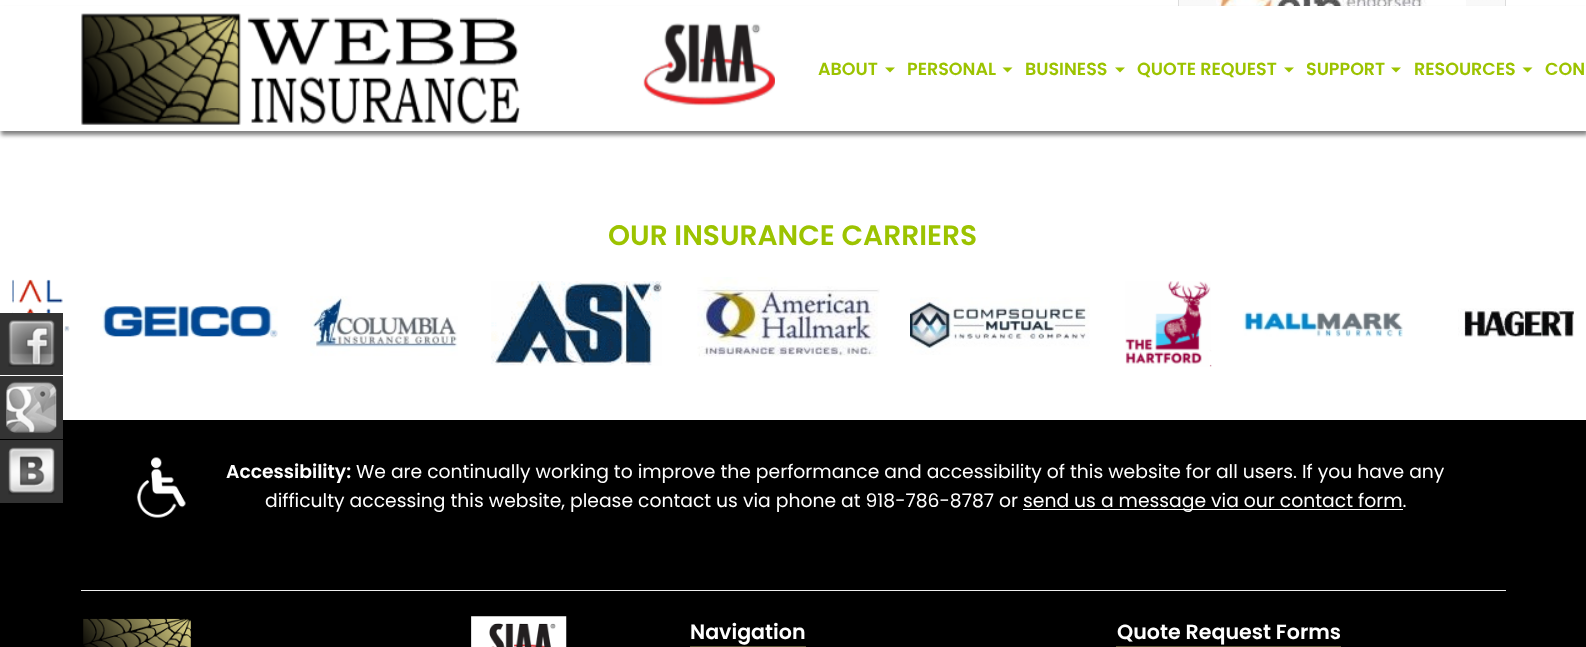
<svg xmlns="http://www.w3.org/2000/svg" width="1586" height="647">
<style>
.a{font:600 17.5px Poppins;fill:#9cc300}
.b{font:600 28.1px Poppins;fill:#9cc300}
.c{font:600 18.75px Poppins;fill:#fff}
.d{font:18.75px Poppins;fill:#fff}
.e{font:600 20.6px Poppins;fill:#fff}
</style>
<defs>
<linearGradient id="g1" gradientUnits="userSpaceOnUse" x1="1342" y1="-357" x2="1342" y2="94"><stop offset="0" stop-color="#f1f1f1"/><stop offset="1" stop-color="#fbfbfb"/></linearGradient>
</defs>
<rect width="100%" height="100%" fill="#fff"/>
<path fill="url(#g1)" d="M1179 0h326v6H1179z"/>
<path fill="none" stroke="#dcdcdc" d="M1178.5 -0.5h327v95H1178.5z"/>
<image href="1.png" x="1216" y="0" width="250" height="6"/>
<path fill="#00000080" filter="blur(2px)" d="M1 10h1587v125H1z"/>
<path fill="#fff" d="M0 6h1586v125H0z"/>
<image href="2.png" x="81" y="13" width="694" height="112"/>
<path fill="#9cc300" d="M885 67.5h10l-5 5z"/>
<path fill="#9cc300" d="M1002.5 67.5h10l-5 5z"/>
<path fill="#9cc300" d="M1115 67.5h10l-5 5z"/>
<path fill="#9cc300" d="M1284 67.5h10l-5 5z"/>
<path fill="#9cc300" d="M1391 67.5h10l-5 5z"/>
<path fill="#9cc300" d="M1522.5 67.5h10l-5 5z"/>
<image href="3.png" x="12" y="279" width="58" height="54"/>
<image href="4.png" x="100" y="306" width="178" height="32"/>
<image href="5.png" x="310" y="296" width="148" height="60"/>
<image href="6.png" x="491" y="281" width="171" height="85"/>
<image href="7.png" x="697" y="277" width="183" height="80"/>
<image href="8.png" x="910" y="297" width="180" height="58"/>
<image href="9.png" x="1125" y="281" width="87" height="86"/>
<image href="10.png" x="1243" y="311" width="160" height="26"/>
<image href="11.png" x="1458" y="308" width="116" height="29"/>
<path fill="#333" d="M0 313h63v62H0z"/>
<image href="12.png" x="8" y="320" width="47" height="47"/>
<path fill="#000" d="M0 420h1586v227H0z"/>
<path fill="#333" d="M0 376h63v63H0z"/>
<image href="13.png" x="6" y="381" width="51" height="52"/>
<path fill="#333" d="M0 440h63v63H0z"/>
<image href="14.png" x="8" y="447" width="47" height="48"/>
<image href="15.png" x="136" y="457" width="50" height="61"/>
<path fill="#fff" d="M1023 509h380v1H1023z"/>
<path fill="#eee" d="M81 590h1425v1H81z"/>
<image href="16.png" x="83" y="616" width="484" height="31"/>
<path fill="#575335" d="M690 646h116v1H690z"/>
<path fill="#575335" d="M1116 646h225v1H1116z"/>
<text class="a" x="818" y="75">ABOUT</text>
<text class="a" x="907" y="75">PERSONAL</text>
<text class="a" x="1025" y="75">BUSINESS</text>
<text class="a" x="1137" y="75">QUOTE REQUEST</text>
<text class="a" x="1306" y="75">SUPPORT</text>
<text class="a" x="1414" y="75">RESOURCES</text>
<text class="a" x="1545" y="75">CON</text>
<text class="b" x="608" y="245">OUR INSURANCE CARRIERS</text>
<text class="c" x="226" y="478">Accessibility:</text>
<text class="d" x="356" y="478">We are continually working to improve the performance and accessibility of this website for all users. If you have any</text>
<text class="d" x="265" y="507">difficulty accessing this website, please contact us via phone at 918-786-8787 or</text>
<text class="d" x="1023" y="507">send us a message via our contact form.</text>
<text class="e" x="690" y="639">Navigation</text>
<text class="e" x="1117" y="639">Quote Request Forms</text>
</svg>
